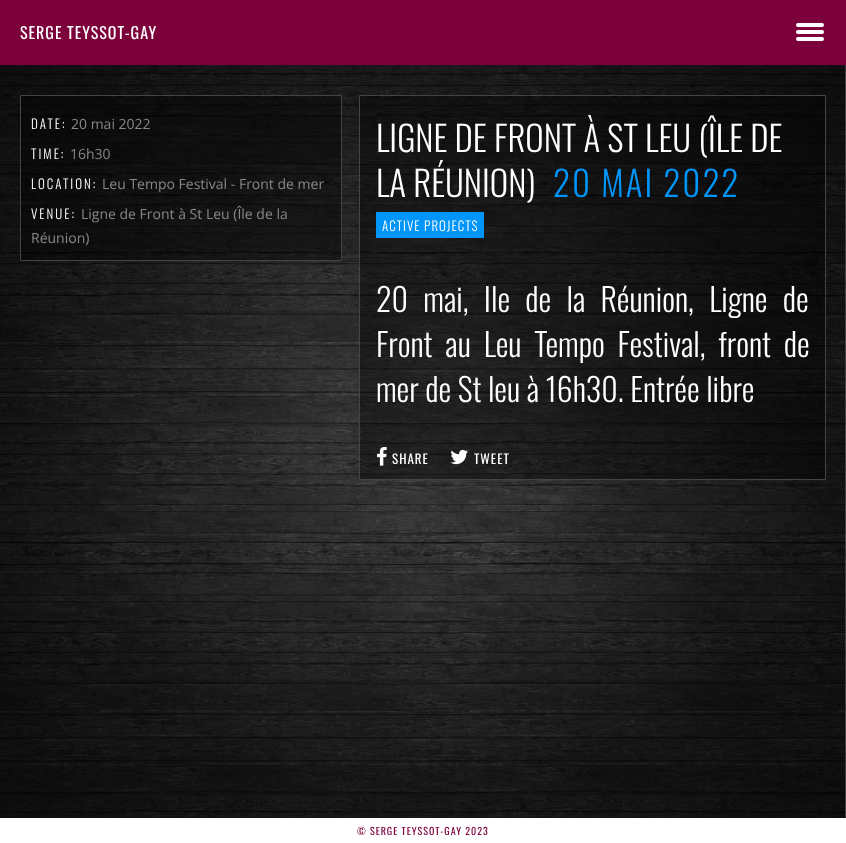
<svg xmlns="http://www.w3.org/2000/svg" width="846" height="843">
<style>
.a{font:16px Oswald;letter-spacing:1px;fill:#fff}
.b{font:300 13px Oswald;letter-spacing:2px;fill:#fff}
.c{font:14px Open Sans;fill:#888}
.d{font:300 35px Oswald;fill:#fff}
.e{font:300 35px Oswald;letter-spacing:2px;fill:#0095f9}
.f{font:300 13px Oswald;letter-spacing:1px;fill:#fff}
.g{font:300 32px Oswald;fill:#fff}
.h{font:13px Oswald;letter-spacing:1px;fill:#fff}
.i{font:10px Oswald;letter-spacing:1px;fill:#7c003a}
</style>
<rect width="100%" height="100%" fill="#fff"/>
<path fill="#7c003a" d="M0 0h846v65H0z"/>
<rect fill="#fff" x="796" y="23" width="28" height="4" rx="2"/>
<rect fill="#fff" x="796" y="30" width="28" height="4" rx="2"/>
<rect fill="#fff" x="796" y="37" width="28" height="4" rx="2"/>
<image href="1.png" x="0" y="65" width="846" height="753"/>
<path fill="#00000066" stroke="#434543" d="M20.5 95.5h321v165H20.5z"/>
<path fill="#00000066" stroke="#434543" d="M359.5 95.5h466v384H359.5z"/>
<path fill="#0095f9" d="M376 212h108v26H376z"/>
<image href="2.png" x="377" y="447" width="10" height="19"/>
<image href="3.png" x="450" y="449" width="18" height="16"/>
<text class="a" x="20" y="39">SERGE TEYSSOT-GAY</text>
<text class="b" x="31" y="129">DATE:</text>
<text class="c" x="71" y="129">20 mai 2022</text>
<text class="b" x="31" y="159">TIME:</text>
<text class="c" x="70" y="159">16h30</text>
<text class="b" x="31" y="189">LOCATION:</text>
<text class="c" x="102" y="189">Leu Tempo Festival - Front de mer</text>
<text class="b" x="31" y="219">VENUE:</text>
<text class="c" x="81" y="219">Ligne de Front à St Leu (Île de la</text>
<text class="c" x="31" y="243">Réunion)</text>
<text class="d" x="376" y="152">LIGNE DE FRONT À ST LEU (ÎLE DE</text>
<text class="d" x="376" y="197">LA RÉUNION)</text>
<text class="e" x="553" y="197">20 MAI 2022</text>
<text class="f" x="382" y="231">ACTIVE PROJECTS</text>
<text class="g" x="376" y="312" word-spacing="8.75">20 mai, Ile de la Réunion, Ligne de</text>
<text class="g" x="376" y="357" word-spacing="6.25">Front au Leu Tempo Festival, front de</text>
<text class="g" x="376" y="402">mer de St leu à 16h30. Entrée libre</text>
<text class="h" x="392" y="464">SHARE</text>
<text class="h" x="474" y="464">TWEET</text>
<text class="i" x="357" y="835">© SERGE TEYSSOT-GAY 2023</text>
</svg>
